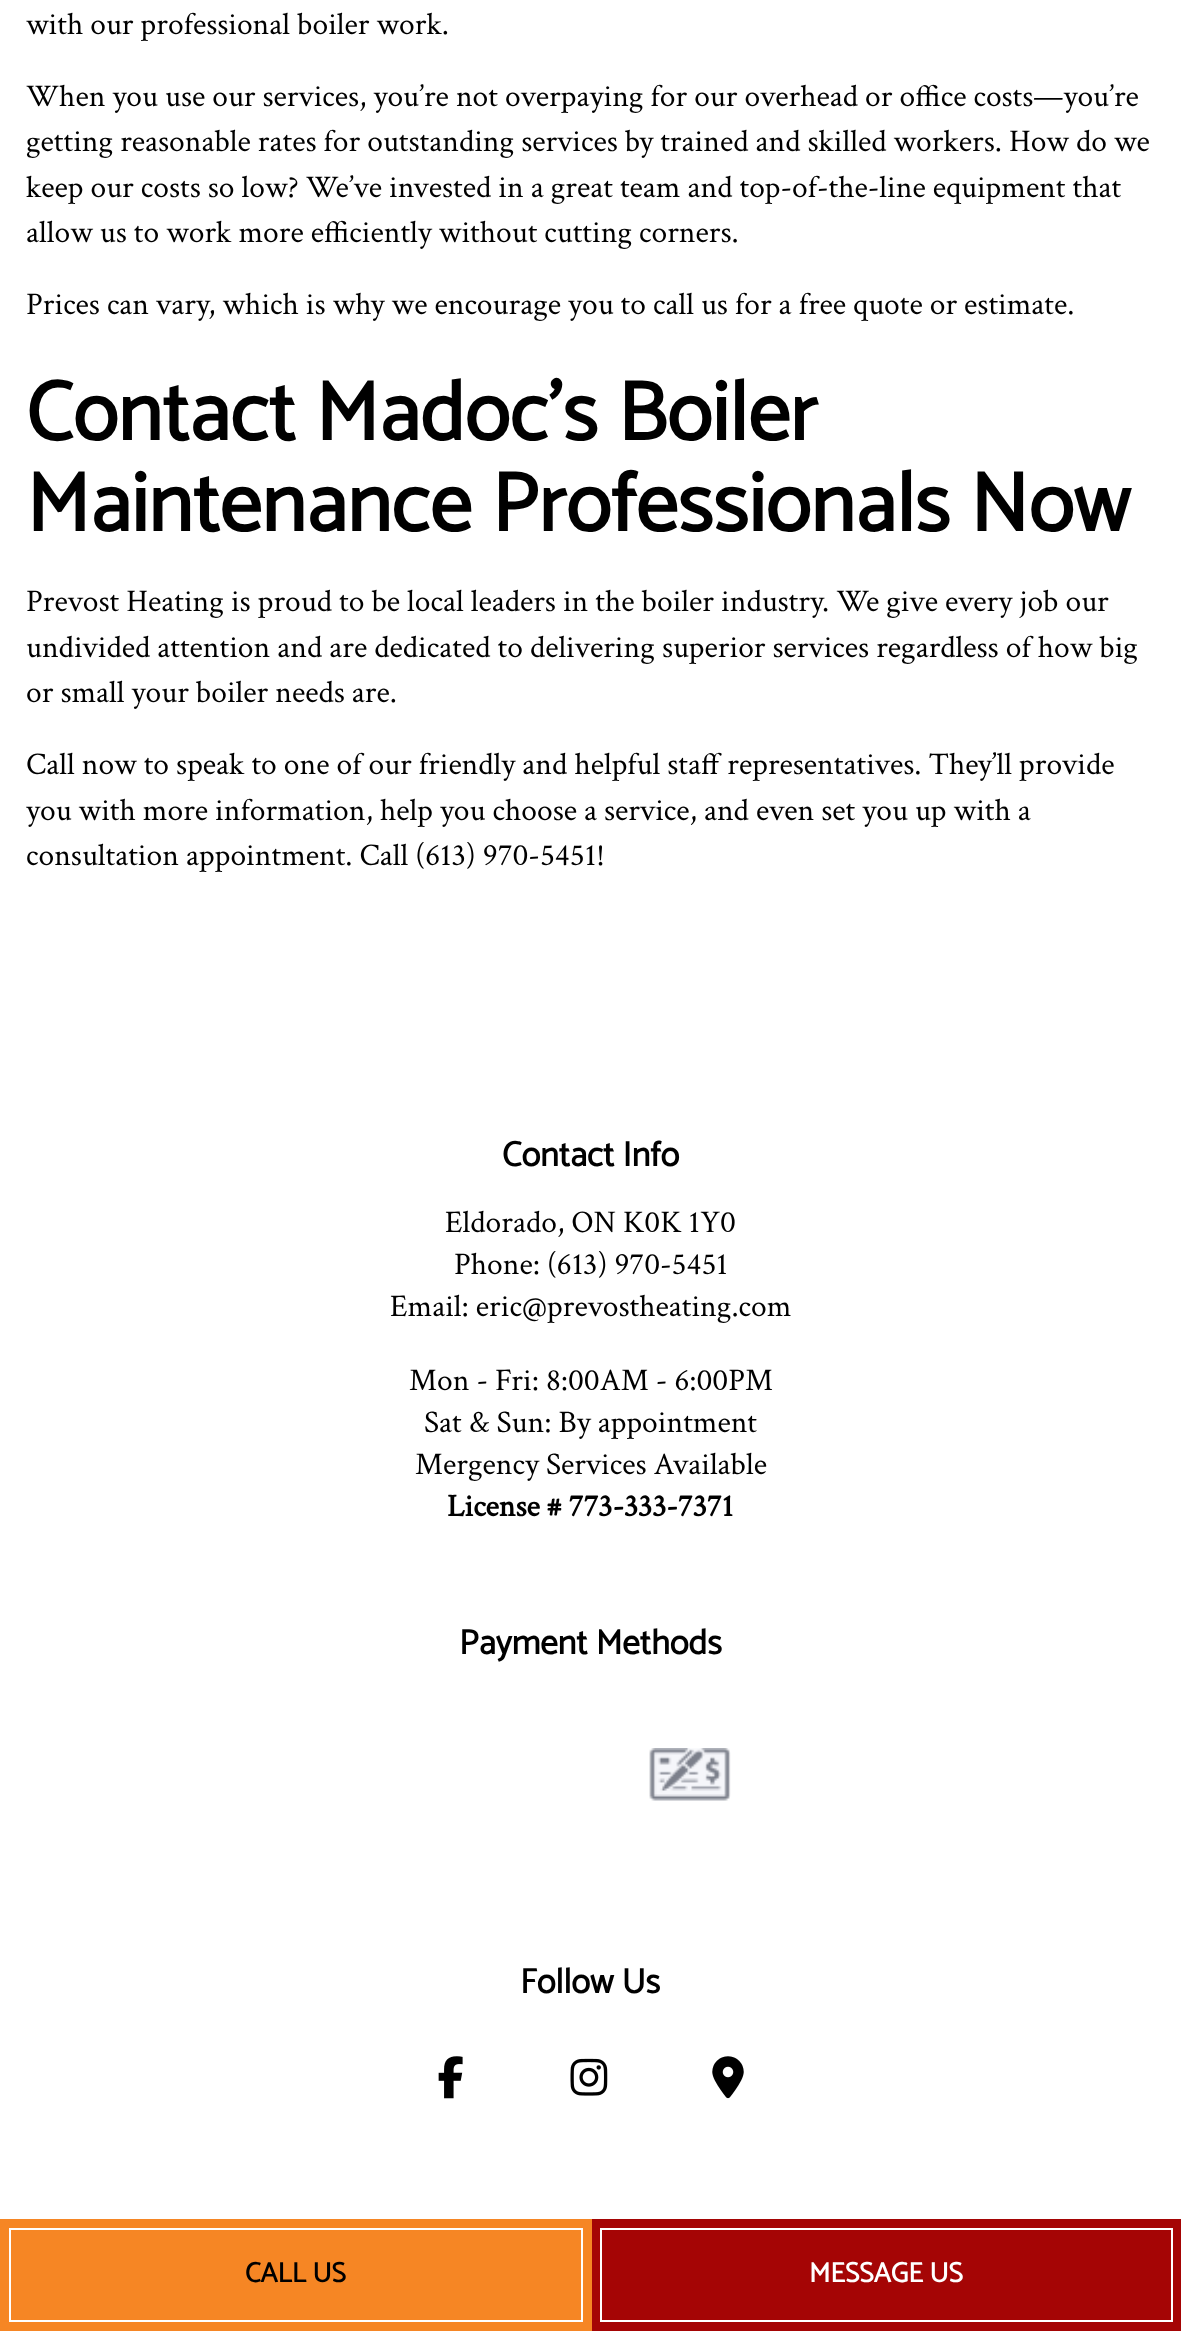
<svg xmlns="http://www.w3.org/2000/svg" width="1181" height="2331">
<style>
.a{font:31.5px Crimson Text;fill:#000}
.b{font:bold 84px Catamaran;fill:#000}
.c{font:bold 35px Catamaran;fill:#000}
.d{font:bold 31.5px Crimson Text;fill:#000}
.e{font:bold 28px Catamaran;fill:#000}
.f{font:bold 28px Catamaran;fill:#fff}
</style>
<rect width="100%" height="100%" fill="#fff"/>
<image href="1.png" x="649" y="1748" width="82" height="53"/>
<image href="2.png" x="438" y="2056" width="25" height="43"/>
<image href="3.png" x="570" y="2058" width="38" height="38"/>
<image href="4.png" x="712" y="2056" width="32" height="43"/>
<path fill="#f68624" d="M0 2219h592v112H0z"/>
<path fill="none" stroke="#fff" stroke-width="2" d="M10 2229h572v92H10z"/>
<path fill="#a50505" d="M592 2219h589v112H592z"/>
<path fill="none" stroke="#fff" stroke-width="2" d="M601 2229h571v92H601z"/>
<text class="a" x="26" y="34">with our professional boiler work.</text>
<text class="a" x="26" y="106">When you use our services, you’re not overpaying for our overhead or office costs—you’re</text>
<text class="a" x="26" y="151">getting reasonable rates for outstanding services by trained and skilled workers. How do we</text>
<text class="a" x="26" y="197">keep our costs so low? We’ve invested in a great team and top-of-the-line equipment that</text>
<text class="a" x="26" y="242">allow us to work more efficiently without cutting corners.</text>
<text class="a" x="26" y="314">Prices can vary, which is why we encourage you to call us for a free quote or estimate.</text>
<text class="b" x="26" y="440">Contact Madoc’s Boiler</text>
<text class="b" x="26" y="531">Maintenance Professionals Now</text>
<text class="a" x="26" y="611">Prevost Heating is proud to be local leaders in the boiler industry. We give every job our</text>
<text class="a" x="26" y="657">undivided attention and are dedicated to delivering superior services regardless of how big</text>
<text class="a" x="26" y="702">or small your boiler needs are.</text>
<text class="a" x="26" y="774">Call now to speak to one of our friendly and helpful staff representatives. They’ll provide</text>
<text class="a" x="26" y="820">you with more information, help you choose a service, and even set you up with a</text>
<text class="a" x="26" y="865">consultation appointment. Call (613) 970-5451!</text>
<text class="c" x="502" y="1166">Contact Info</text>
<text class="a" x="445" y="1232">Eldorado, ON K0K 1Y0</text>
<text class="a" x="454" y="1274">Phone: (613) 970-5451</text>
<text class="a" x="390" y="1316">Email: eric@prevostheating.com</text>
<text class="a" x="409" y="1390">Mon - Fri: 8:00AM - 6:00PM</text>
<text class="a" x="424" y="1432">Sat &amp; Sun: By appointment</text>
<text class="a" x="415" y="1474">Mergency Services Available</text>
<text class="d" x="447" y="1516">License # 773-333-7371</text>
<text class="c" x="459" y="1654">Payment Methods</text>
<text class="c" x="520" y="1993">Follow Us</text>
<text class="e" x="245" y="2282">CALL US</text>
<text class="f" x="809" y="2282">MESSAGE US</text>
</svg>
